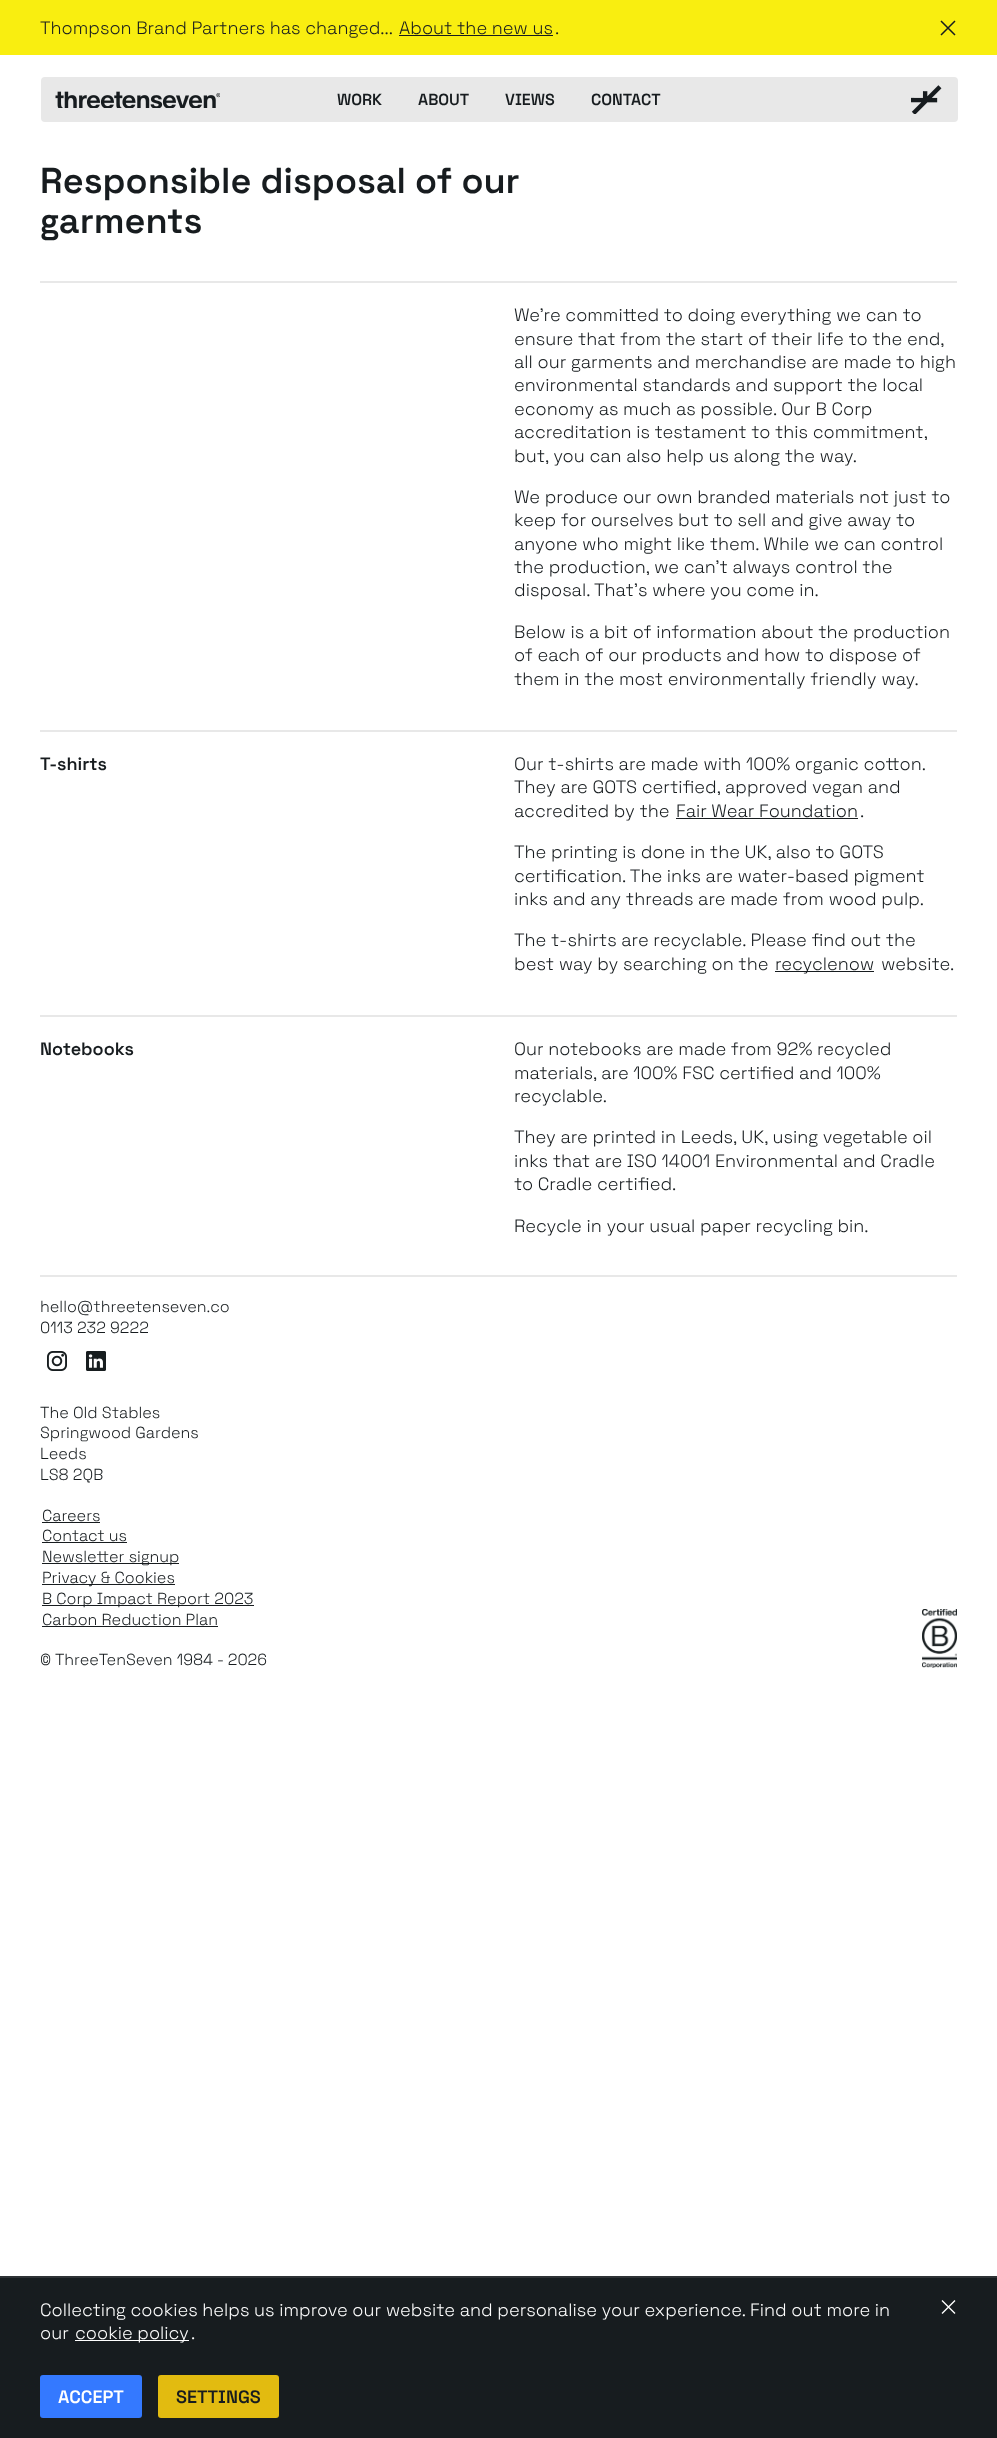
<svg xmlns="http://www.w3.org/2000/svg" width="997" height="2438">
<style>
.a{font:300 18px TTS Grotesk;fill:#171c1f}
.b{font:600 16px TTS Grotesk;fill:#171c1f}
.c{font:600 36px TTS Grotesk;fill:#171c1f}
.d{font:600 18px TTS Grotesk;fill:#171c1f}
.e{font:300 16px TTS Grotesk;fill:#171c1f}
.f{font:300 18px TTS Grotesk;fill:#fff}
.g{font:600 18px TTS Grotesk;fill:#fff}
</style>
<rect width="100%" height="100%" fill="#fff"/>
<path fill="#f9ee10" d="M0 0h997v55H0z"/>
<path fill="#171c1f" d="M399 35h154v1H399z"/>
<path fill="none" stroke="#171c1f" stroke-width="1.5" d="M941 21l14 14m-14 0l14-14"/>
<rect fill="#e8e8e8" x="41" y="77" width="917" height="45" rx="4"/>
<image href="1.png" x="55" y="91" width="165" height="17"/>
<image href="2.png" x="911" y="85" width="31" height="29"/>
<path fill="#e8e8e8" d="M40 281h917v2H40z"/>
<path fill="#e8e8e8" d="M40 730h917v2H40z"/>
<path fill="#171c1f" d="M676 818h182v1H676z"/>
<path fill="#171c1f" d="M775 971h99v1H775z"/>
<path fill="#e8e8e8" d="M40 1015h917v2H40z"/>
<path fill="#e8e8e8" d="M40 1275h917v2H40z"/>
<image href="3.png" x="47" y="1351" width="20" height="20"/>
<image href="4.png" x="86" y="1351" width="20" height="20"/>
<path fill="#171c1f" d="M42 1522h58v1H42z"/>
<path fill="#171c1f" d="M42 1542h85v1H42z"/>
<path fill="#171c1f" d="M42 1563h137v1H42z"/>
<path fill="#171c1f" d="M42 1584h133v1H42z"/>
<path fill="#171c1f" d="M42 1605h212v1H42z"/>
<path fill="#171c1f" d="M42 1626h176v1H42z"/>
<image href="5.png" x="922" y="1609" width="35" height="59"/>
<path fill="#171c1f" d="M0 2278h997v160H0z"/>
<path fill="#2e3235" d="M0 2276h997v2H0z"/>
<path fill="#fff" d="M75 2340h114v1H75z"/>
<rect fill="#3479ff" x="40" y="2375" width="102" height="43" rx="3"/>
<rect fill="#e2bb10" x="158" y="2375" width="121" height="43" rx="3"/>
<path fill="none" stroke="#fff" stroke-width="1.4" d="M942 2300.5l13 13m-13 0l13-13"/>
<text class="a" x="40" y="34">Thompson Brand Partners has changed...</text>
<text class="a" x="399" y="34">About the new us</text>
<text class="a" x="555" y="34">.</text>
<text class="b" x="337" y="105">WORK</text>
<text class="b" x="418" y="105">ABOUT</text>
<text class="b" x="505" y="105">VIEWS</text>
<text class="b" x="591" y="105">CONTACT</text>
<text class="c" x="40" y="193">Responsible disposal of our</text>
<text class="c" x="40" y="233">garments</text>
<text class="a" x="514" y="321">We're committed to doing everything we can to</text>
<text class="a" x="514" y="345">ensure that from the start of their life to the end,</text>
<text class="a" x="514" y="368">all our garments and merchandise are made to high</text>
<text class="a" x="514" y="391">environmental standards and support the local</text>
<text class="a" x="514" y="415">economy as much as possible. Our B Corp</text>
<text class="a" x="514" y="438">accreditation is testament to this commitment,</text>
<text class="a" x="514" y="462">but, you can also help us along the way.</text>
<text class="a" x="514" y="503">We produce our own branded materials not just to</text>
<text class="a" x="514" y="526">keep for ourselves but to sell and give away to</text>
<text class="a" x="514" y="550">anyone who might like them. While we can control</text>
<text class="a" x="514" y="573">the production, we can't always control the</text>
<text class="a" x="514" y="596">disposal. That's where you come in.</text>
<text class="a" x="514" y="638">Below is a bit of information about the production</text>
<text class="a" x="514" y="661">of each of our products and how to dispose of</text>
<text class="a" x="514" y="685">them in the most environmentally friendly way.</text>
<text class="d" x="40" y="770">T-shirts</text>
<text class="a" x="514" y="770">Our t-shirts are made with 100% organic cotton.</text>
<text class="a" x="514" y="793">They are GOTS certified, approved vegan and</text>
<text class="a" x="514" y="817">accredited by the</text>
<text class="a" x="676" y="817">Fair Wear Foundation</text>
<text class="a" x="860" y="817">.</text>
<text class="a" x="514" y="858">The printing is done in the UK, also to GOTS</text>
<text class="a" x="514" y="882">certification. The inks are water-based pigment</text>
<text class="a" x="514" y="905">inks and any threads are made from wood pulp.</text>
<text class="a" x="514" y="946">The t-shirts are recyclable. Please find out the</text>
<text class="a" x="514" y="970">best way by searching on the</text>
<text class="a" x="775" y="970">recyclenow</text>
<text class="a" x="881" y="970">website.</text>
<text class="d" x="40" y="1055">Notebooks</text>
<text class="a" x="514" y="1055">Our notebooks are made from 92% recycled</text>
<text class="a" x="514" y="1079">materials, are 100% FSC certified and 100%</text>
<text class="a" x="514" y="1102">recyclable.</text>
<text class="a" x="514" y="1143">They are printed in Leeds, UK, using vegetable oil</text>
<text class="a" x="514" y="1167">inks that are ISO 14001 Environmental and Cradle</text>
<text class="a" x="514" y="1190">to Cradle certified.</text>
<text class="a" x="514" y="1232">Recycle in your usual paper recycling bin.</text>
<text class="e" x="40" y="1312">hello@threetenseven.co</text>
<text class="e" x="40" y="1333">0113 232 9222</text>
<text class="e" x="40" y="1418">The Old Stables</text>
<text class="e" x="40" y="1438">Springwood Gardens</text>
<text class="e" x="40" y="1459">Leeds</text>
<text class="e" x="40" y="1480">LS8 2QB</text>
<text class="e" x="42" y="1521">Careers</text>
<text class="e" x="42" y="1541">Contact us</text>
<text class="e" x="42" y="1562">Newsletter signup</text>
<text class="e" x="42" y="1583">Privacy &amp; Cookies</text>
<text class="e" x="42" y="1604">B Corp Impact Report 2023</text>
<text class="e" x="42" y="1625">Carbon Reduction Plan</text>
<text class="e" x="40" y="1665">© ThreeTenSeven 1984 - 2026</text>
<text class="f" x="40" y="2316">Collecting cookies helps us improve our website and personalise your experience. Find out more in</text>
<text class="f" x="40" y="2339">our</text>
<text class="f" x="75" y="2339">cookie policy</text>
<text class="f" x="191" y="2339">.</text>
<text class="g" x="58" y="2403">ACCEPT</text>
<text class="d" x="176" y="2403">SETTINGS</text>
</svg>
